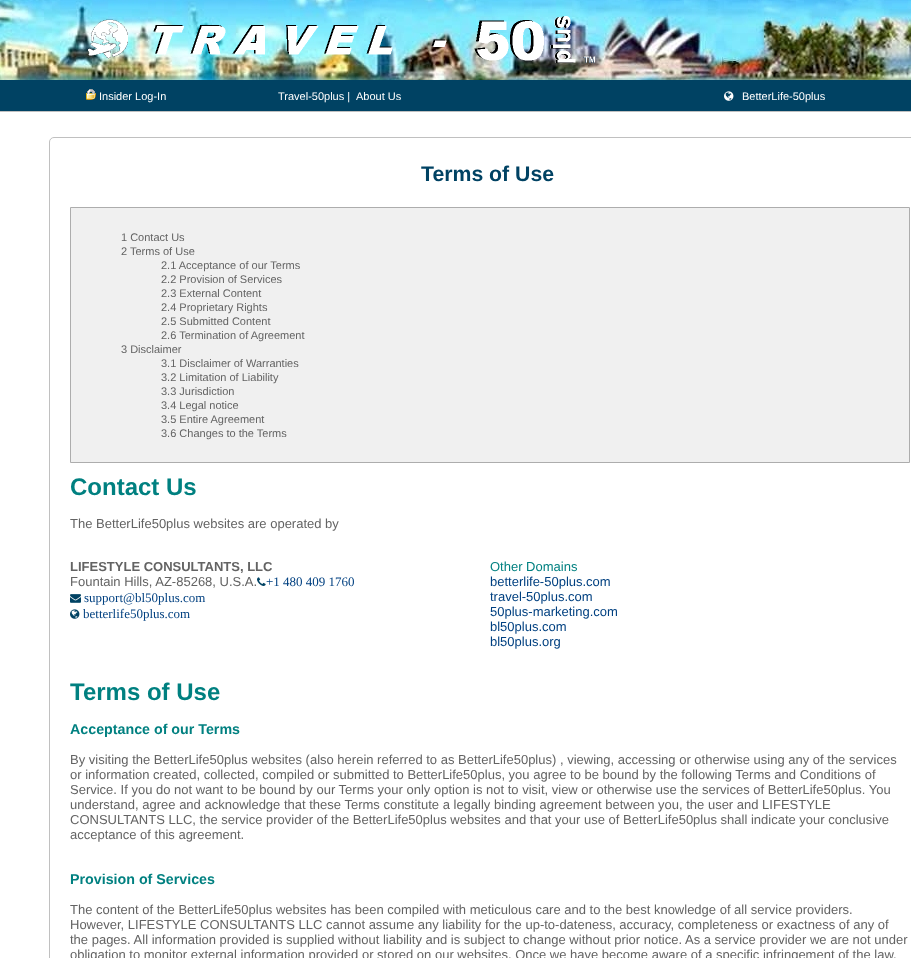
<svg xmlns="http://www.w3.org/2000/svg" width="911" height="958">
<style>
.a{font:11px Liberation Sans;fill:#fff}
.b{font:bold 21.25px Liberation Sans;fill:#004263}
.c{font:11px Liberation Sans;fill:#636363}
.d{font:bold 24px Liberation Sans;fill:#008080}
.e{font:13px Liberation Sans;fill:#636363}
.f{font:bold 13px Liberation Sans;fill:#636363}
.g{font:13px Liberation Serif;fill:#004080}
.h{font:13px Liberation Sans;fill:#008080}
.i{font:13px Liberation Sans;fill:#004080}
.j{font:bold 14.25px Liberation Sans;fill:#008080}
</style>
<rect width="100%" height="100%" fill="#fff"/>
<image href="1.png" x="0" y="0" width="911" height="80"/>
<image href="2.png" x="88" y="16" width="507" height="47"/>
<path fill="#004263" d="M0 80h911v31H0z"/>
<path fill="#c0c0c0" d="M0 111h911v1H0z"/>
<image href="3.png" x="86" y="89" width="10" height="11"/>
<image href="4.png" x="724" y="91" width="10" height="10"/>
<rect fill="none" stroke="#c0c0c0" x="49.5" y="137.5" width="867" height="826" rx="4.5"/>
<path fill="#f0f0f0" stroke="#adadad" d="M70.5 207.5h839v255H70.5z"/>
<image href="5.png" x="257" y="577" width="9" height="9"/>
<image href="6.png" x="70" y="594" width="11" height="9"/>
<image href="7.png" x="70" y="609" width="10" height="10"/>
<text class="a" x="99" y="100">Insider Log-In</text>
<text class="a" x="278" y="100">Travel-50plus |</text>
<text class="a" x="356" y="100">About Us</text>
<text class="a" x="742" y="100">BetterLife-50plus</text>
<text class="b" x="421" y="181">Terms of Use</text>
<text class="c" x="121" y="241">1 Contact Us</text>
<text class="c" x="121" y="255">2 Terms of Use</text>
<text class="c" x="161" y="269">2.1 Acceptance of our Terms</text>
<text class="c" x="161" y="283">2.2 Provision of Services</text>
<text class="c" x="161" y="297">2.3 External Content</text>
<text class="c" x="161" y="311">2.4 Proprietary Rights</text>
<text class="c" x="161" y="325">2.5 Submitted Content</text>
<text class="c" x="161" y="339">2.6 Termination of Agreement</text>
<text class="c" x="121" y="353">3 Disclaimer</text>
<text class="c" x="161" y="367">3.1 Disclaimer of Warranties</text>
<text class="c" x="161" y="381">3.2 Limitation of Liability</text>
<text class="c" x="161" y="395">3.3 Jurisdiction</text>
<text class="c" x="161" y="409">3.4 Legal notice</text>
<text class="c" x="161" y="423">3.5 Entire Agreement</text>
<text class="c" x="161" y="437">3.6 Changes to the Terms</text>
<text class="d" x="70" y="495">Contact Us</text>
<text class="e" x="70" y="528">The BetterLife50plus websites are operated by</text>
<text class="f" x="70" y="571">LIFESTYLE CONSULTANTS, LLC</text>
<text class="e" x="70" y="586">Fountain Hills, AZ-85268, U.S.A.</text>
<text class="g" x="266" y="586">+1 480 409 1760</text>
<text class="g" x="84" y="602">support@bl50plus.com</text>
<text class="g" x="83" y="618">betterlife50plus.com</text>
<text class="h" x="490" y="571">Other Domains</text>
<text class="i" x="490" y="586">betterlife-50plus.com</text>
<text class="i" x="490" y="601">travel-50plus.com</text>
<text class="i" x="490" y="616">50plus-marketing.com</text>
<text class="i" x="490" y="631">bl50plus.com</text>
<text class="i" x="490" y="646">bl50plus.org</text>
<text class="d" x="70" y="700">Terms of Use</text>
<text class="j" x="70" y="734">Acceptance of our Terms</text>
<text class="e" x="70" y="764">By visiting the BetterLife50plus websites (also herein referred to as BetterLife50plus) , viewing, accessing or otherwise using any of the services</text>
<text class="e" x="70" y="779">or information created, collected, compiled or submitted to BetterLife50plus, you agree to be bound by the following Terms and Conditions of</text>
<text class="e" x="70" y="794">Service. If you do not want to be bound by our Terms your only option is not to visit, view or otherwise use the services of BetterLife50plus. You</text>
<text class="e" x="70" y="809">understand, agree and acknowledge that these Terms constitute a legally binding agreement between you, the user and LIFESTYLE</text>
<text class="e" x="70" y="824">CONSULTANTS LLC, the service provider of the BetterLife50plus websites and that your use of BetterLife50plus shall indicate your conclusive</text>
<text class="e" x="70" y="839">acceptance of this agreement.</text>
<text class="j" x="70" y="884">Provision of Services</text>
<text class="e" x="70" y="914">The content of the BetterLife50plus websites has been compiled with meticulous care and to the best knowledge of all service providers.</text>
<text class="e" x="70" y="929">However, LIFESTYLE CONSULTANTS LLC cannot assume any liability for the up-to-dateness, accuracy, completeness or exactness of any of</text>
<text class="e" x="70" y="944">the pages. All information provided is supplied without liability and is subject to change without prior notice. As a service provider we are not under</text>
<text class="e" x="70" y="959">obligation to monitor external information provided or stored on our websites. Once we have become aware of a specific infringement of the law,</text>
</svg>
